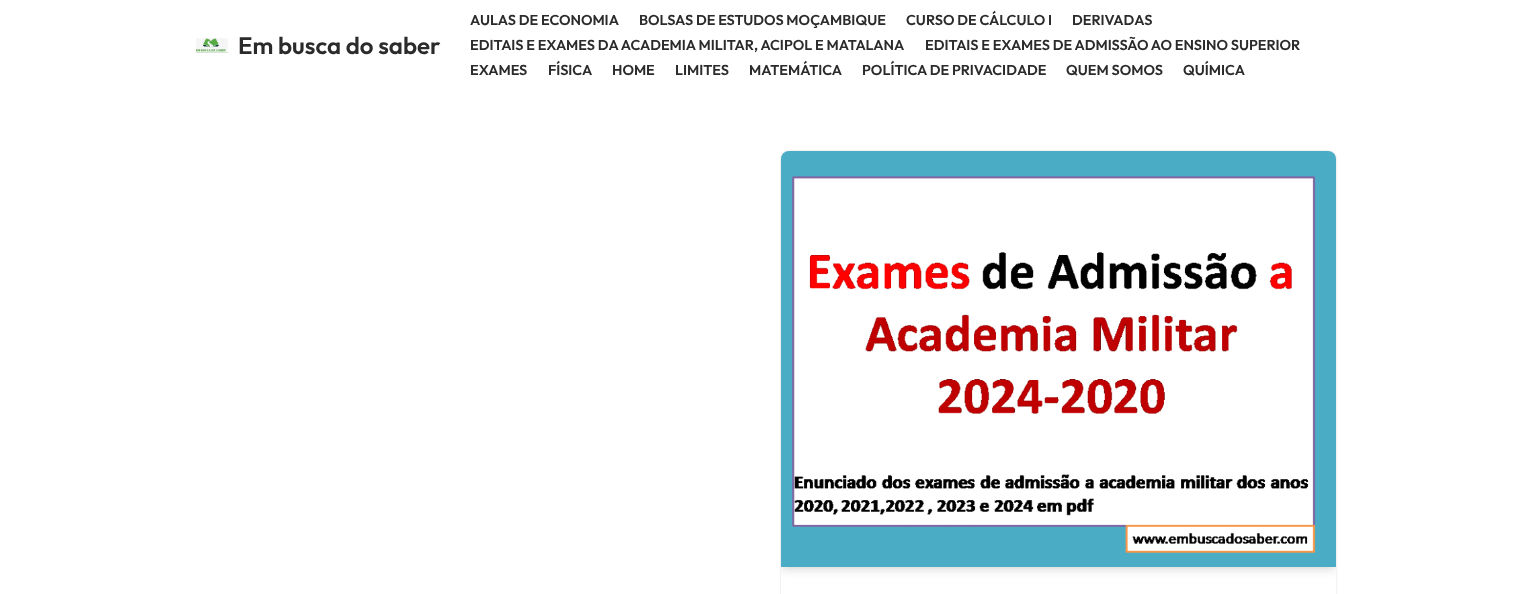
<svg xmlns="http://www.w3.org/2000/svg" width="1532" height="594">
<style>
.a{font:600 24px Outfit;fill:#2b2b2b}
.b{font:600 14.4px Outfit;fill:#2b2b2b}
</style>
<defs>
<clipPath id="clip1"><rect x="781" y="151" width="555" height="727" rx="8"/></clipPath>
</defs>
<rect width="100%" height="100%" fill="#fff"/>
<image href="1.png" x="196" y="38" width="32" height="15"/>
<rect fill="#00000026" filter="blur(1px)" x="781" y="151" width="555" height="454" rx="8"/>
<rect fill="#fff" x="781" y="151" width="555" height="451" rx="8"/>
<g clip-path="url(#clip1)">
<path fill="#0000001a" filter="blur(4px)" d="M781 155h555v416H781z"/>
</g>
<path fill="#0000001a" filter="blur(3px)" d="M786 159h545v406H786z"/>
<image href="2.png" x="781" y="151" width="555" height="416"/>
<text class="a" x="238" y="54">Em busca do saber</text>
<text class="b" x="470" y="25">AULAS DE ECONOMIA</text>
<text class="b" x="639" y="25">BOLSAS DE ESTUDOS MOÇAMBIQUE</text>
<text class="b" x="906" y="25">CURSO DE CÁLCULO I</text>
<text class="b" x="1072" y="25">DERIVADAS</text>
<text class="b" x="470" y="50">EDITAIS E EXAMES DA ACADEMIA MILITAR, ACIPOL E MATALANA</text>
<text class="b" x="925" y="50">EDITAIS E EXAMES DE ADMISSÃO AO ENSINO SUPERIOR</text>
<text class="b" x="470" y="75">EXAMES</text>
<text class="b" x="548" y="75">FÍSICA</text>
<text class="b" x="612" y="75">HOME</text>
<text class="b" x="675" y="75">LIMITES</text>
<text class="b" x="749" y="75">MATEMÁTICA</text>
<text class="b" x="862" y="75">POLÍTICA DE PRIVACIDADE</text>
<text class="b" x="1066" y="75">QUEM SOMOS</text>
<text class="b" x="1183" y="75">QUÍMICA</text>
</svg>
